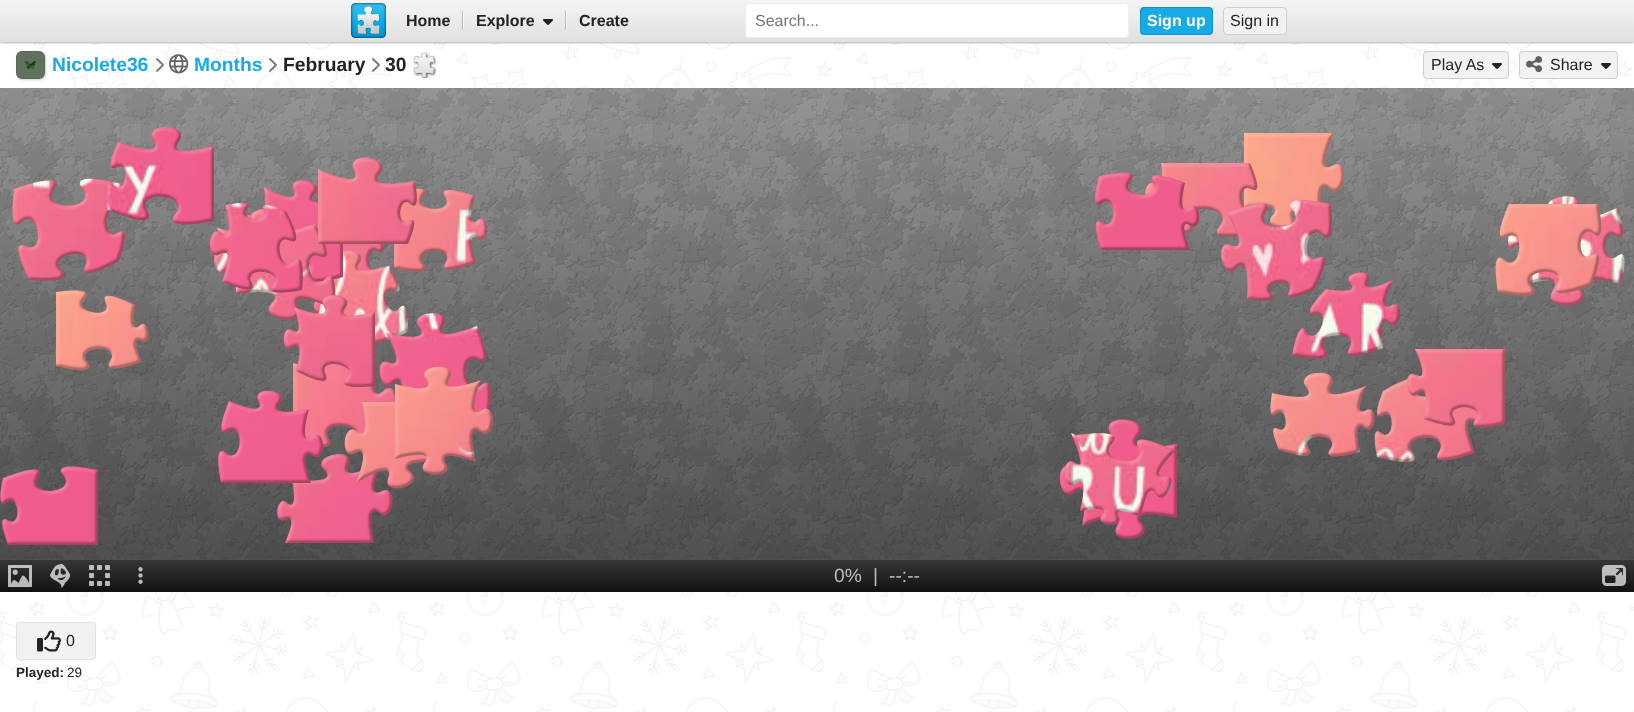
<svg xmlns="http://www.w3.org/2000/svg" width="1634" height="712">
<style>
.a{font:bold 16px Liberation Sans;fill:#222}
.b{font:16px Liberation Sans;fill:#757575}
.c{font:bold 16px Liberation Sans;fill:#fff}
.d{font:16px Liberation Sans;fill:#222}
.e{font:bold 19.25px Liberation Sans;fill:#17abe6}
.f{font:bold 19.25px Liberation Sans;fill:#222}
.g{font:19.25px Liberation Sans;fill:#bebebe}
.h{font:bold 13.5px Liberation Sans;fill:#222}
.i{font:13.5px Liberation Sans;fill:#222}
</style>
<defs>
<linearGradient id="g1" gradientUnits="userSpaceOnUse" x1="817" y1="0" x2="817" y2="42"><stop offset="0" stop-color="#f5f5f5"/><stop offset="1" stop-color="#e0e0e0"/></linearGradient>
<clipPath id="clip1"><path d="M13 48h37v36h-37zm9 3h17c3.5 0 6 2.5 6 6v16c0 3.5-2.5 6-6 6h-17c-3.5 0-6-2.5-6-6v-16c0-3.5 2.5-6 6-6z" clip-rule="evenodd"/></clipPath>
<linearGradient id="g2" gradientUnits="userSpaceOnUse" x1="817" y1="560" x2="817" y2="592"><stop offset="0" stop-color="#363636"/><stop offset="1" stop-color="#121212"/></linearGradient>
</defs>
<rect width="100%" height="100%" fill="#fff"/>
<image href="1.png" x="0" y="42" width="1634" height="670"/>
<path fill="#0000004d" filter="blur(1px)" d="M0 1h1634v42H0z"/>
<path fill="url(#g1)" d="M0 0h1634v42H0z"/>
<image href="2.png" x="351" y="3" width="35" height="35"/>
<path fill="#ffffff99" d="M463 11h1v19H463z"/>
<path fill="#00000033" d="M462 11h1v19H462z"/>
<image href="3.png" x="543" y="19" width="10" height="6"/>
<path fill="#ffffff99" d="M566 11h1v19H566z"/>
<path fill="#00000033" d="M565 11h1v19H565z"/>
<rect fill="#fff" x="745" y="3" width="384" height="35" rx="4"/>
<rect fill="none" stroke="#00000012" x="745.5" y="3.5" width="383" height="34" rx="3.5"/>
<rect fill="#17abe6" x="1140" y="7" width="73" height="28" rx="4"/>
<rect fill="none" stroke="#00000026" x="1140.5" y="7.5" width="72" height="27" rx="3.5"/>
<rect fill="#f2f2f2" x="1223" y="7" width="64" height="28" rx="4"/>
<rect fill="none" stroke="#00000026" x="1223.5" y="7.5" width="63" height="27" rx="3.5"/>
<g clip-path="url(#clip1)">
<rect fill="#00000033" filter="blur(1px)" x="17" y="52" width="29" height="28" rx="6"/>
</g>
<image href="4.png" x="16" y="51" width="29" height="28"/>
<rect fill="none" stroke="#00000012" x="16.5" y="51.5" width="28" height="27" rx="5.5"/>
<image href="5.png" x="156" y="58" width="8" height="14"/>
<image href="6.png" x="169" y="54" width="20" height="20"/>
<image href="7.png" x="269" y="58" width="8" height="14"/>
<image href="8.png" x="372" y="58" width="8" height="14"/>
<image href="9.png" x="413" y="52" width="24" height="26"/>
<rect fill="#f2f2f2" x="1423" y="51" width="86" height="28" rx="4"/>
<rect fill="none" stroke="#00000026" x="1423.5" y="51.5" width="85" height="27" rx="3.5"/>
<image href="10.png" x="1492" y="63" width="10" height="6"/>
<rect fill="#f2f2f2" x="1519" y="51" width="99" height="28" rx="4"/>
<rect fill="none" stroke="#00000026" x="1519.5" y="51.5" width="98" height="27" rx="3.5"/>
<image href="11.png" x="1526" y="56" width="17" height="17"/>
<image href="10.png" x="1601" y="63" width="10" height="6"/>
<image href="12.png" x="0" y="88" width="1634" height="471"/>
<image href="17.png" x="12" y="178" width="113" height="103"/>
<image href="26.png" x="274" y="244" width="110" height="70"/>
<image href="28.png" x="309" y="250" width="99" height="93"/>
<image href="18.png" x="246" y="180" width="97" height="102"/>
<image href="25.png" x="214" y="209" width="122" height="111"/>
<image href="23.png" x="209" y="203" width="94" height="90"/>
<image href="13.png" x="106" y="127" width="108" height="98"/>
<image href="19.png" x="394" y="188" width="94" height="84"/>
<image href="14.png" x="318" y="157" width="99" height="87"/>
<image href="16.png" x="1244" y="133" width="101" height="94"/>
<image href="15.png" x="1145" y="163" width="113" height="74"/>
<image href="20.png" x="1094" y="172" width="106" height="78"/>
<image href="21.png" x="1221" y="200" width="111" height="101"/>
<image href="22.png" x="1508" y="196" width="117" height="110"/>
<image href="24.png" x="1495" y="204" width="107" height="92"/>
<image href="27.png" x="56" y="290" width="93" height="81"/>
<image href="29.png" x="1292" y="272" width="109" height="87"/>
<image href="34.png" x="293" y="363" width="102" height="89"/>
<image href="30.png" x="283" y="295" width="92" height="92"/>
<image href="31.png" x="379" y="313" width="112" height="99"/>
<image href="37.png" x="1374" y="379" width="104" height="83"/>
<image href="32.png" x="1407" y="349" width="98" height="79"/>
<image href="41.png" x="277" y="454" width="116" height="89"/>
<image href="33.png" x="218" y="390" width="105" height="93"/>
<image href="38.png" x="344" y="402" width="101" height="87"/>
<image href="35.png" x="395" y="366" width="98" height="109"/>
<image href="36.png" x="1270" y="372" width="105" height="85"/>
<image href="39.png" x="1059" y="419" width="118" height="120"/>
<image href="40.png" x="0" y="466" width="98" height="79"/>
<image href="42.png" x="1064" y="433" width="111" height="92"/>
<path fill="url(#g2)" d="M0 560h1634v32H0z"/>
<path fill="#4f4f4f" d="M0 559h1634v1H0z"/>
<image href="43.png" x="8" y="565" width="24" height="23"/>
<image href="44.png" x="50" y="564" width="21" height="24"/>
<image href="45.png" x="89" y="565" width="21" height="21"/>
<image href="46.png" x="138" y="567" width="5" height="17"/>
<image href="47.png" x="1602" y="565" width="24" height="21"/>
<rect fill="#f2f2f2" x="16" y="622" width="80" height="38" rx="4"/>
<rect fill="none" stroke="#00000012" x="16.5" y="622.5" width="79" height="37" rx="3.5"/>
<image href="48.png" x="37" y="630" width="24" height="22"/>
<text class="a" x="406" y="26">Home</text>
<text class="a" x="476" y="26">Explore</text>
<text class="a" x="579" y="26">Create</text>
<text class="b" x="755" y="26">Search...</text>
<text class="c" x="1147" y="26">Sign up</text>
<text class="d" x="1230" y="26">Sign in</text>
<text class="e" x="52" y="71">Nicolete36</text>
<text class="e" x="194" y="71">Months</text>
<text class="f" x="283" y="71">February</text>
<text class="f" x="385" y="71">30</text>
<text class="d" x="1431" y="70">Play As</text>
<text class="d" x="1550" y="70">Share</text>
<text class="g" x="834" y="582">0%</text>
<text class="g" x="873" y="582">|</text>
<text class="g" x="889" y="582">--:--</text>
<text class="d" x="66" y="646">0</text>
<text class="h" x="16" y="677">Played:</text>
<text class="i" x="67" y="677">29</text>
</svg>
